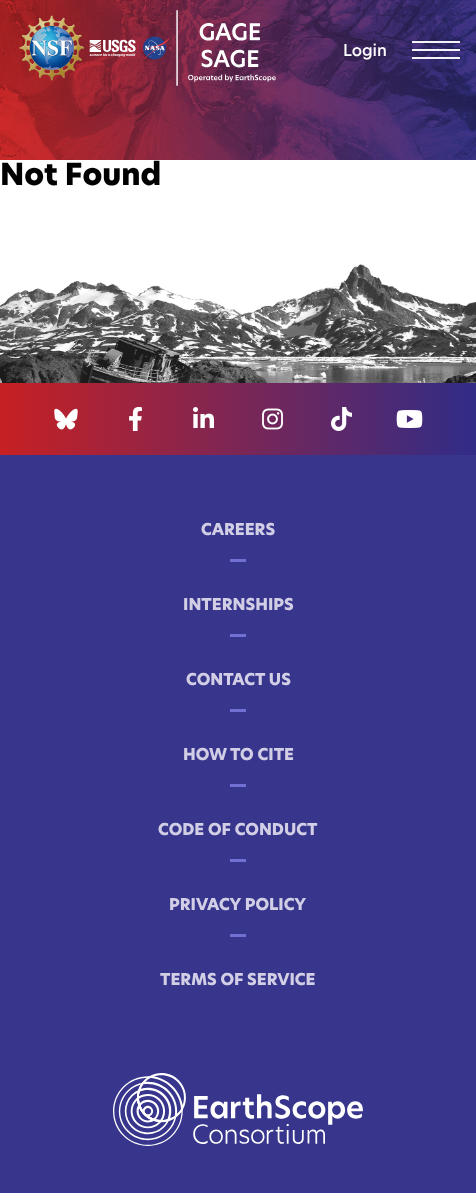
<svg xmlns="http://www.w3.org/2000/svg" width="476" height="1193">
<style>
.a{font:500 16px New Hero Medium;fill:#fff}
.b{font:800 30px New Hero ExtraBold;fill:#000}
.c{font:800 16px New Hero ExtraBold;fill:#d1cee5}
</style>
<defs>
<linearGradient id="g1" gradientUnits="userSpaceOnUse" x1="0" y1="419" x2="476" y2="419"><stop offset="0" stop-color="#c72023"/><stop offset="0.99" stop-color="#322c86"/></linearGradient>
</defs>
<rect width="100%" height="100%" fill="#fff"/>
<image href="1.png" x="0" y="0" width="476" height="160"/>
<image href="2.png" x="19" y="10" width="257" height="76"/>
<path fill="#fffffff2" d="M412 41h48v2H412z"/>
<path fill="#fffffff2" d="M412 49h48v2H412z"/>
<path fill="#fffffff2" d="M412 57h48v2H412z"/>
<image href="3.png" x="0" y="264" width="476" height="119"/>
<path fill="url(#g1)" d="M0 383h476v72H0z"/>
<image href="4.png" x="54" y="408" width="24" height="22"/>
<image href="5.png" x="129" y="407" width="13" height="24"/>
<image href="6.png" x="193" y="407" width="21" height="21"/>
<image href="7.png" x="262" y="408" width="21" height="22"/>
<image href="8.png" x="331" y="407" width="21" height="24"/>
<image href="9.png" x="396" y="410" width="27" height="18"/>
<path fill="#37358c" d="M0 455h476v738H0z"/>
<path fill="#716fd1" d="M230 559h16v3H230z"/>
<path fill="#716fd1" d="M230 634h16v3H230z"/>
<path fill="#716fd1" d="M230 709h16v3H230z"/>
<path fill="#716fd1" d="M230 784h16v3H230z"/>
<path fill="#716fd1" d="M230 859h16v3H230z"/>
<path fill="#716fd1" d="M230 934h16v3H230z"/>
<image href="10.png" x="113" y="1073" width="250" height="73"/>
<text class="a" x="343" y="56">Login</text>
<text class="b" x="0" y="185">Not Found</text>
<text class="c" x="201" y="535">CAREERS</text>
<text class="c" x="183" y="610">INTERNSHIPS</text>
<text class="c" x="186" y="685">CONTACT US</text>
<text class="c" x="183" y="760">HOW TO CITE</text>
<text class="c" x="158" y="835">CODE OF CONDUCT</text>
<text class="c" x="169" y="910">PRIVACY POLICY</text>
<text class="c" x="160" y="985">TERMS OF SERVICE</text>
</svg>
